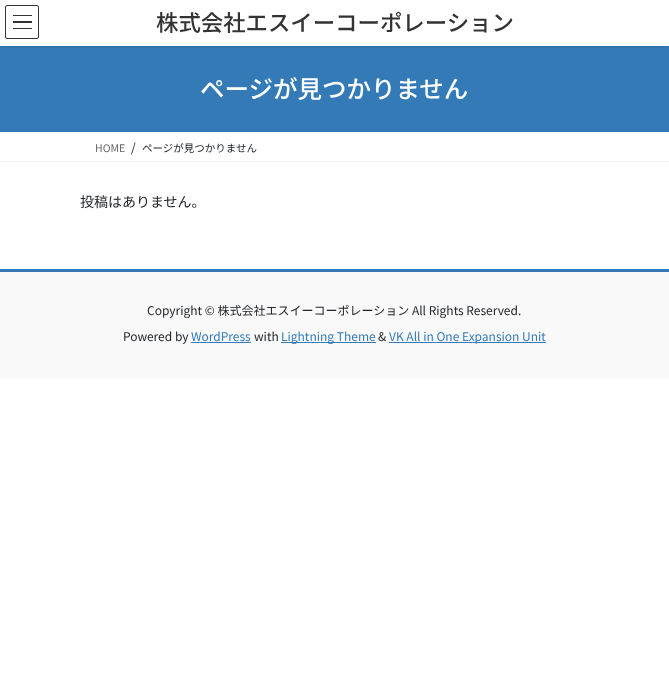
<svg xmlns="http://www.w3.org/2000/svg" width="669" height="699">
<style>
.a{font:500 22.4px Noto Sans JP;fill:#333}
.b{font:500 24.5px Noto Sans JP;fill:#fff}
.c{font:10.5px Noto Sans JP;fill:#666}
.d{font:12px Noto Sans JP;fill:#212529}
.e{font:10.5px Noto Sans JP;fill:#212529}
.f{font:14px Noto Sans JP;fill:#212529}
.g{font:12px Noto Sans JP;fill:#337ab7}
</style>
<defs>
<clipPath id="clip1"><path d="M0 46h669v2H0z"/></clipPath>
</defs>
<rect width="100%" height="100%" fill="#fff"/>
<path fill="#337ab7" d="M0 46h669v86H0z"/>
<g clip-path="url(#clip1)">
<path fill="#0000001a" filter="blur(1.5px)" d="M0 1h669v46H0z"/>
</g>
<path fill="#333" d="M13 15h19v1H13z"/>
<path fill="#333" d="M13 21h19v2H13z"/>
<path fill="#333" d="M13 28h19v1H13z"/>
<rect fill="none" stroke="#333" x="5.5" y="5.5" width="33" height="33" rx="1.5"/>
<path fill="#f2f2f2" d="M0 161h669v1H0z"/>
<path fill="#f9f9f9" d="M0 272h669v107H0z"/>
<path fill="#337ab7" d="M0 269h669v3H0z"/>
<path fill="#337ab7" d="M191 342h60v1H191z"/>
<path fill="#337ab7" d="M281 342h95v1H281z"/>
<path fill="#337ab7" d="M389 342h157v1H389z"/>
<text class="a" x="156" y="31">株式会社エスイーコーポレーション</text>
<text class="b" x="200" y="98">ページが見つかりません</text>
<text class="c" x="95" y="152">HOME</text>
<text class="d" x="131" y="152">/</text>
<text class="e" x="142" y="152">ページが見つかりません</text>
<text class="f" x="80" y="207">投稿はありません。</text>
<text class="d" x="147" y="315">Copyright © 株式会社エスイーコーポレーション All Rights Reserved.</text>
<text class="d" x="123" y="341">Powered by</text>
<text class="g" x="191" y="341">WordPress</text>
<text class="d" x="254" y="341">with</text>
<text class="g" x="281" y="341">Lightning Theme</text>
<text class="d" x="378" y="341">&amp;</text>
<text class="g" x="389" y="341">VK All in One Expansion Unit</text>
</svg>
